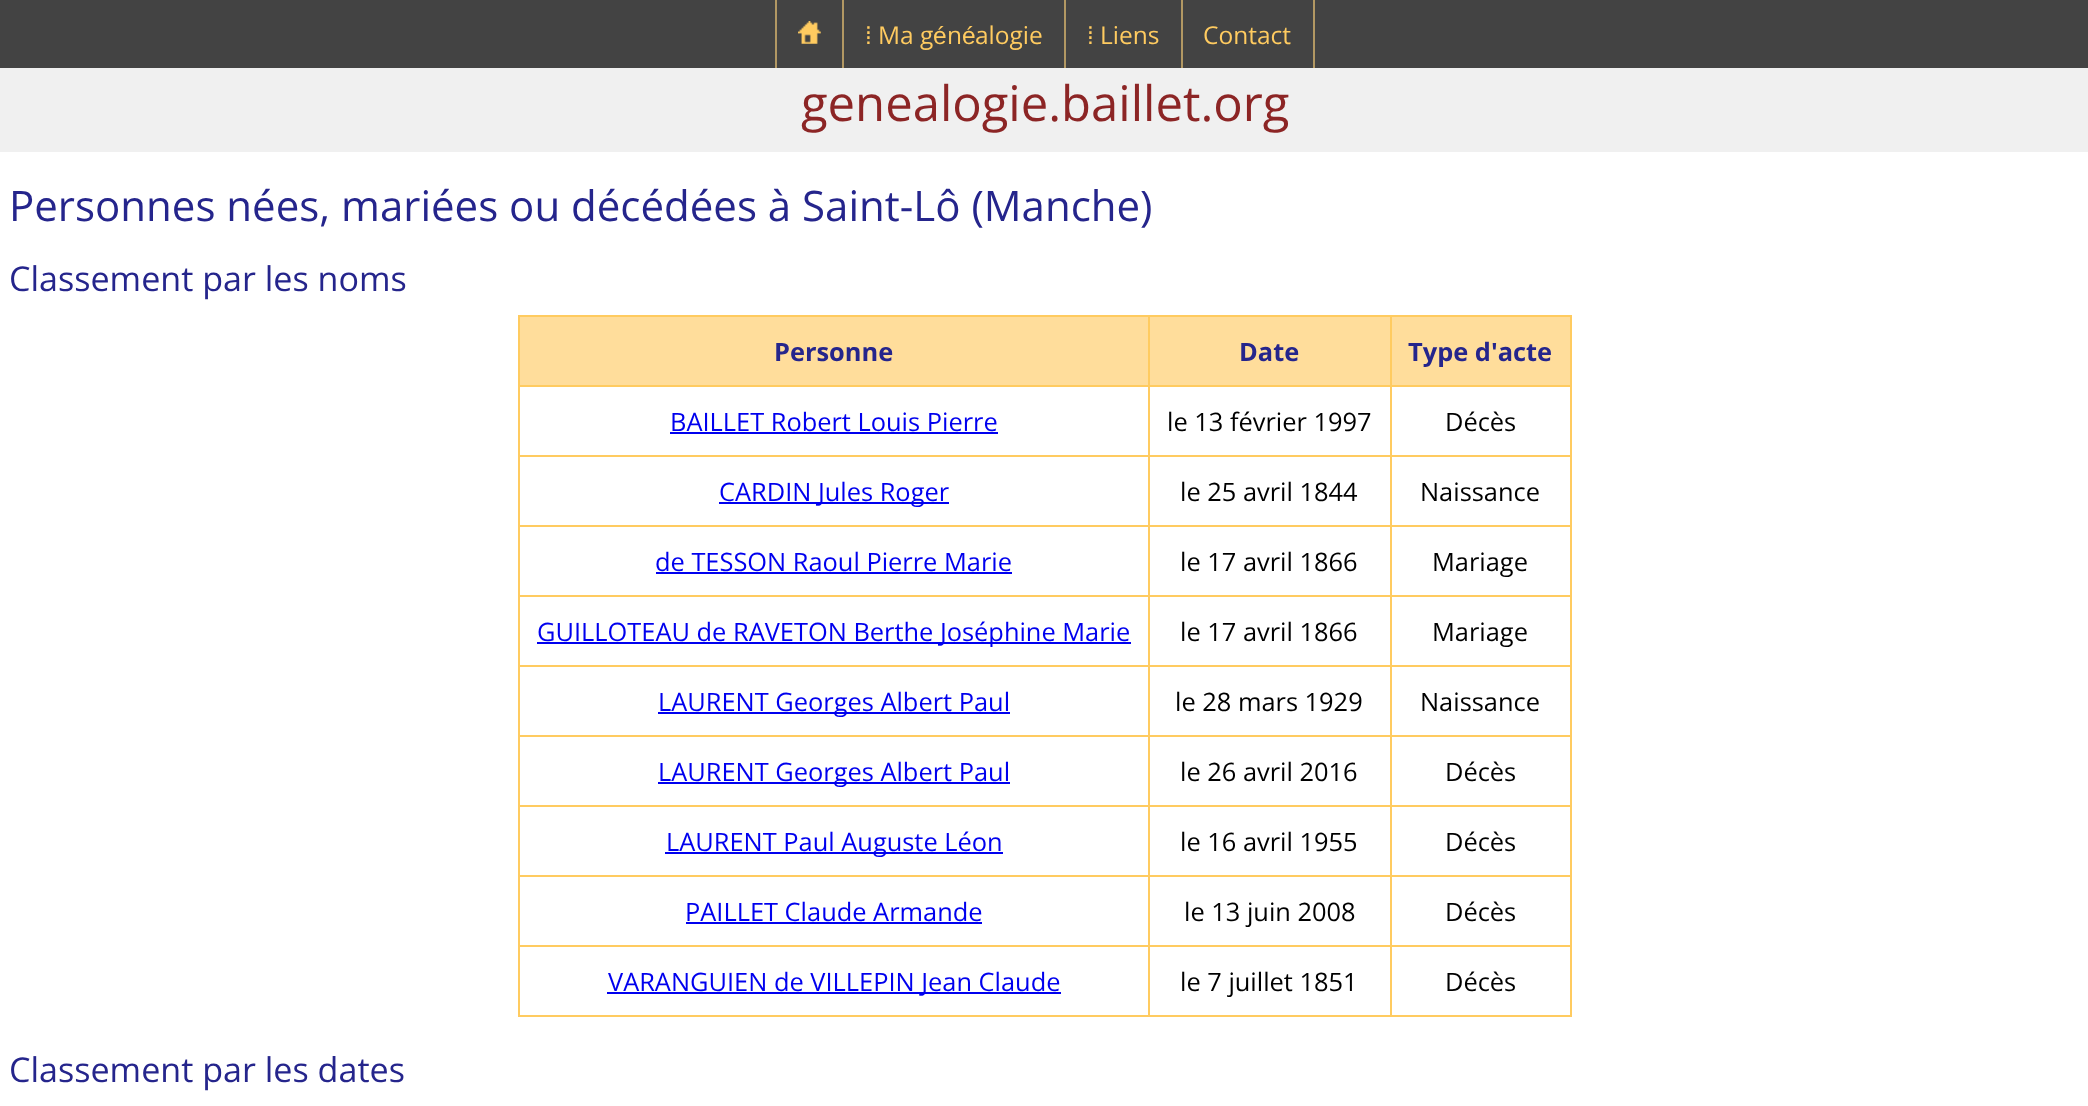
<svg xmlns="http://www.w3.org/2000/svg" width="2088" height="1106">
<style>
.a{font:24.5px Liberation Sans;fill:#ffcb60}
.b{font:24.5px Open Sans;fill:#ffcb60}
.c{font:49px Open Sans;fill:#8c2525}
.d{font:42px Open Sans;fill:#25258c}
.e{font:34.1px Open Sans;fill:#25258c}
.f{font:bold 25.4px Open Sans;fill:#25258c}
.g{font:25.4px Open Sans;fill:#00e}
.h{font:25.4px Open Sans;fill:#000}
</style>
<rect width="100%" height="100%" fill="#434343"/>
<path fill="#b29863" d="M775 0h2v68H775z"/>
<image href="1.png" x="798" y="21" width="23" height="23"/>
<path fill="#b29863" d="M842 0h2v68H842z"/>
<path fill="#b29863" d="M1064 0h2v68H1064z"/>
<path fill="#b29863" d="M1313 0h2v68H1313z"/>
<path fill="#b29863" d="M1181 0h2v68H1181z"/>
<path fill="#f0f0f0" d="M0 68h2088v84H0z"/>
<path fill="#fff" d="M0 152h2088v954H0z"/>
<path fill="#ffdd9b" d="M520 317h628v68H520z"/>
<path fill="#ffcb60" d="M1390 315h182v2H1390z"/>
<path fill="#ffcb60" d="M1390 385h182v2H1390z"/>
<path fill="#ffcb60" d="M1390 455h182v2H1390z"/>
<path fill="#ffcb60" d="M1390 525h182v2H1390z"/>
<path fill="#ffcb60" d="M1390 595h182v2H1390z"/>
<path fill="#ffcb60" d="M1390 665h182v2H1390z"/>
<path fill="#ffcb60" d="M1390 735h182v2H1390z"/>
<path fill="#ffcb60" d="M1390 805h182v2H1390z"/>
<path fill="#ffcb60" d="M1390 875h182v2H1390z"/>
<path fill="#ffcb60" d="M1390 945h182v2H1390z"/>
<path fill="#ffcb60" d="M1570 945h2v72H1570z"/>
<path fill="#ffcb60" d="M1390 1015h182v2H1390z"/>
<path fill="#ffcb60" d="M1390 945h2v72H1390z"/>
<path fill="#ffcb60" d="M1148 945h243v2H1148z"/>
<path fill="#ffcb60" d="M1390 875h2v72H1390z"/>
<path fill="#ffcb60" d="M1148 875h243v2H1148z"/>
<path fill="#ffcb60" d="M1390 805h2v72H1390z"/>
<path fill="#ffcb60" d="M1148 805h243v2H1148z"/>
<path fill="#ffcb60" d="M1390 735h2v72H1390z"/>
<path fill="#ffcb60" d="M1148 735h243v2H1148z"/>
<path fill="#ffcb60" d="M1390 665h2v72H1390z"/>
<path fill="#ffcb60" d="M1148 665h243v2H1148z"/>
<path fill="#ffcb60" d="M1390 595h2v72H1390z"/>
<path fill="#ffcb60" d="M1148 595h243v2H1148z"/>
<path fill="#ffcb60" d="M1390 525h2v72H1390z"/>
<path fill="#ffcb60" d="M1148 525h243v2H1148z"/>
<path fill="#ffcb60" d="M1390 455h2v72H1390z"/>
<path fill="#ffcb60" d="M1148 455h243v2H1148z"/>
<path fill="#ffcb60" d="M1390 385h2v72H1390z"/>
<path fill="#ffcb60" d="M1148 385h243v2H1148z"/>
<path fill="#ffcb60" d="M1390 315h2v72H1390z"/>
<path fill="#ffcb60" d="M1148 315h243v2H1148z"/>
<path fill="#ffcb60" d="M1148 1015h243v2H1148z"/>
<path fill="#ffcb60" d="M1148 945h2v72H1148z"/>
<path fill="#ffcb60" d="M518 945h632v2H518z"/>
<path fill="#ffcb60" d="M1148 875h2v72H1148z"/>
<path fill="#ffcb60" d="M518 875h632v2H518z"/>
<path fill="#ffcb60" d="M1148 805h2v72H1148z"/>
<path fill="#ffcb60" d="M518 805h632v2H518z"/>
<path fill="#ffcb60" d="M1148 735h2v72H1148z"/>
<path fill="#ffcb60" d="M518 735h632v2H518z"/>
<path fill="#ffcb60" d="M1148 665h2v72H1148z"/>
<path fill="#ffcb60" d="M518 665h632v2H518z"/>
<path fill="#ffcb60" d="M1148 595h2v72H1148z"/>
<path fill="#ffcb60" d="M518 595h632v2H518z"/>
<path fill="#ffcb60" d="M1148 525h2v72H1148z"/>
<path fill="#ffcb60" d="M518 525h632v2H518z"/>
<path fill="#ffcb60" d="M1148 455h2v72H1148z"/>
<path fill="#ffcb60" d="M518 455h632v2H518z"/>
<path fill="#ffcb60" d="M1148 385h2v72H1148z"/>
<path fill="#ffcb60" d="M518 385h632v2H518z"/>
<path fill="#ffcb60" d="M1148 315h2v72H1148z"/>
<path fill="#ffcb60" d="M518 315h632v2H518z"/>
<path fill="#ffcb60" d="M518 1015h632v2H518z"/>
<path fill="#ffcb60" d="M518 945h2v72H518z"/>
<path fill="#ffcb60" d="M518 875h2v72H518z"/>
<path fill="#ffcb60" d="M518 805h2v72H518z"/>
<path fill="#ffcb60" d="M518 735h2v72H518z"/>
<path fill="#ffcb60" d="M518 665h2v72H518z"/>
<path fill="#ffcb60" d="M518 595h2v72H518z"/>
<path fill="#ffcb60" d="M518 525h2v72H518z"/>
<path fill="#ffcb60" d="M518 455h2v72H518z"/>
<path fill="#ffcb60" d="M518 385h2v72H518z"/>
<path fill="#ffcb60" d="M518 315h2v72H518z"/>
<path fill="#ffdd9b" d="M1150 317h240v68H1150z"/>
<path fill="#ffdd9b" d="M1392 317h178v68H1392z"/>
<path fill="#ffcb60" d="M1570 875h2v72H1570z"/>
<path fill="#ffcb60" d="M1570 805h2v72H1570z"/>
<path fill="#ffcb60" d="M1570 735h2v72H1570z"/>
<path fill="#ffcb60" d="M1570 665h2v72H1570z"/>
<path fill="#ffcb60" d="M1570 595h2v72H1570z"/>
<path fill="#ffcb60" d="M1570 525h2v72H1570z"/>
<path fill="#ffcb60" d="M1570 455h2v72H1570z"/>
<path fill="#ffcb60" d="M1570 385h2v72H1570z"/>
<path fill="#ffcb60" d="M1570 315h2v72H1570z"/>
<path fill="#00e" d="M670 432h328v2H670z"/>
<path fill="#00e" d="M719 502h230v2H719z"/>
<path fill="#00e" d="M656 572h356v2H656z"/>
<path fill="#00e" d="M537 642h594v2H537z"/>
<path fill="#00e" d="M658 712h352v2H658z"/>
<path fill="#00e" d="M658 782h352v2H658z"/>
<path fill="#00e" d="M665 852h338v2H665z"/>
<path fill="#00e" d="M686 922h296v2H686z"/>
<path fill="#00e" d="M607 992h454v2H607z"/>
<text class="a" x="865" y="44">⁞</text>
<text class="b" x="878" y="44">Ma g</text>
<text class="a" x="933" y="44">é</text>
<text class="b" x="947" y="44">n</text>
<text class="a" x="962" y="44">é</text>
<text class="b" x="975" y="44">alogie</text>
<text class="a" x="1087" y="44">⁞</text>
<text class="b" x="1100" y="44">Liens</text>
<text class="b" x="1203" y="44">Contact</text>
<text class="c" x="801" y="121">genealogie.baillet.org</text>
<text class="d" x="9" y="221">Personnes nées, mariées ou décédées à Saint-Lô (Manche)</text>
<text class="e" x="9" y="291">Classement par les noms</text>
<text class="f" x="774" y="361">Personne</text>
<text class="f" x="1239" y="361">Date</text>
<text class="f" x="1408" y="361">Type d'acte</text>
<text class="g" x="670" y="431">BAILLET Robert Louis Pierre</text>
<text class="h" x="1167" y="431">le 13 février 1997</text>
<text class="h" x="1445" y="431">Décès</text>
<text class="g" x="719" y="501">CARDIN Jules Roger</text>
<text class="h" x="1180" y="501">le 25 avril 1844</text>
<text class="h" x="1420" y="501">Naissance</text>
<text class="g" x="655" y="571">de TESSON Raoul Pierre Marie</text>
<text class="h" x="1180" y="571">le 17 avril 1866</text>
<text class="h" x="1432" y="571">Mariage</text>
<text class="g" x="537" y="641">GUILLOTEAU de RAVETON Berthe Joséphine Marie</text>
<text class="h" x="1180" y="641">le 17 avril 1866</text>
<text class="h" x="1432" y="641">Mariage</text>
<text class="g" x="658" y="711">LAURENT Georges Albert Paul</text>
<text class="h" x="1175" y="711">le 28 mars 1929</text>
<text class="h" x="1420" y="711">Naissance</text>
<text class="g" x="658" y="781">LAURENT Georges Albert Paul</text>
<text class="h" x="1180" y="781">le 26 avril 2016</text>
<text class="h" x="1445" y="781">Décès</text>
<text class="g" x="666" y="851">LAURENT Paul Auguste Léon</text>
<text class="h" x="1180" y="851">le 16 avril 1955</text>
<text class="h" x="1445" y="851">Décès</text>
<text class="g" x="685" y="921">PAILLET Claude Armande</text>
<text class="h" x="1184" y="921">le 13 juin 2008</text>
<text class="h" x="1445" y="921">Décès</text>
<text class="g" x="608" y="991">VARANGUIEN de VILLEPIN Jean Claude</text>
<text class="h" x="1180" y="991">le 7 juillet 1851</text>
<text class="h" x="1445" y="991">Décès</text>
<text class="e" x="9" y="1082">Classement par les dates</text>
</svg>
